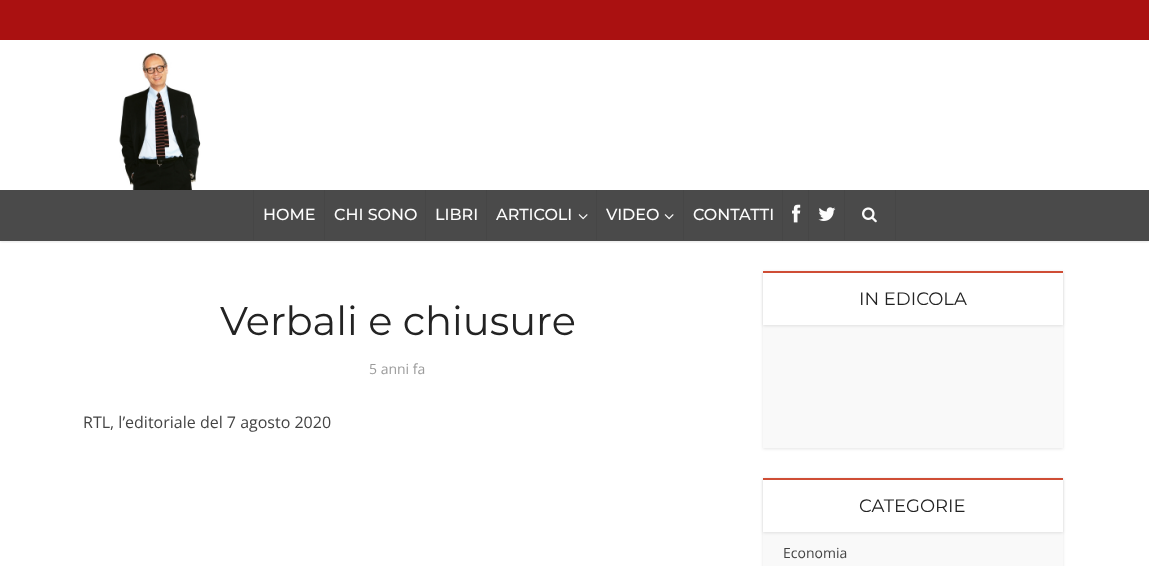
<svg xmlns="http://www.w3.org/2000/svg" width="1149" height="566">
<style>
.a{font:500 16px Montserrat;fill:#fcfcfc}
.b{font:40px Montserrat;fill:#232323}
.c{font:14px Open Sans;fill:#9b9b9b}
.d{font:16px Open Sans;fill:#444}
.e{font:18px Montserrat;fill:#232323}
.f{font:14px Open Sans;fill:#444}
</style>
<defs>
<clipPath id="clip1"><path d="M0 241h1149v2H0z"/></clipPath>
</defs>
<rect width="100%" height="100%" fill="#fff"/>
<g clip-path="url(#clip1)">
<path fill="#0000001a" filter="blur(1.5px)" d="M0 1h1149v241H0z"/>
</g>
<path fill="#a11" d="M0 0h1149v40H0z"/>
<image href="1.png" x="119" y="52" width="82" height="138"/>
<path fill="#4a4a4a" d="M0 190h1149v51H0z"/>
<path fill="#464646" d="M253 190h1v50H253z"/>
<path fill="#464646" d="M324 190h1v50H324z"/>
<path fill="#464646" d="M425 190h1v50H425z"/>
<path fill="#464646" d="M486 190h1v50H486z"/>
<image href="2.png" x="578" y="214" width="10" height="6"/>
<path fill="#464646" d="M596 190h1v50H596z"/>
<image href="2.png" x="664" y="214" width="10" height="6"/>
<path fill="#464646" d="M683 190h1v50H683z"/>
<path fill="#464646" d="M782 190h1v51H782z"/>
<image href="3.png" x="792" y="204" width="9" height="19"/>
<path fill="#464646" d="M808 190h1v51H808z"/>
<image href="4.png" x="818" y="207" width="18" height="14"/>
<path fill="#464646" d="M895 190h1v50H895z"/>
<path fill="#464646" d="M844 190h1v50H844z"/>
<image href="5.png" x="862" y="207" width="15" height="16"/>
<path fill="#0000001a" filter="blur(1.5px)" d="M763 272h300v177H763z"/>
<path fill="#f9f9f9" d="M763 325h300v123H763z"/>
<path fill="#0000001a" filter="blur(1.5px)" d="M763 272h300v54H763z"/>
<path fill="#fff" d="M763 273h300v52H763z"/>
<path fill="#cf4d35" d="M763 271h300v2H763z"/>
<path fill="#0000001a" filter="blur(1.5px)" d="M763 479h300v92H763z"/>
<path fill="#f9f9f9" d="M763 532h300v34H763z"/>
<path fill="#0000001a" filter="blur(1.5px)" d="M763 479h300v54H763z"/>
<path fill="#fff" d="M763 480h300v52H763z"/>
<path fill="#cf4d35" d="M763 478h300v2H763z"/>
<text class="a" x="263" y="220">HOME</text>
<text class="a" x="334" y="220">CHI SONO</text>
<text class="a" x="435" y="220">LIBRI</text>
<text class="a" x="496" y="220">ARTICOLI</text>
<text class="a" x="606" y="220">VIDEO</text>
<text class="a" x="693" y="220">CONTATTI</text>
<text class="b" x="220" y="335">Verbali e chiusure</text>
<text class="c" x="369" y="374">5 anni fa</text>
<text class="d" x="83" y="428">RTL, l’editoriale del 7 agosto 2020</text>
<text class="e" x="859" y="305">IN EDICOLA</text>
<text class="e" x="859" y="512">CATEGORIE</text>
<text class="f" x="783" y="558">Economia</text>
</svg>
